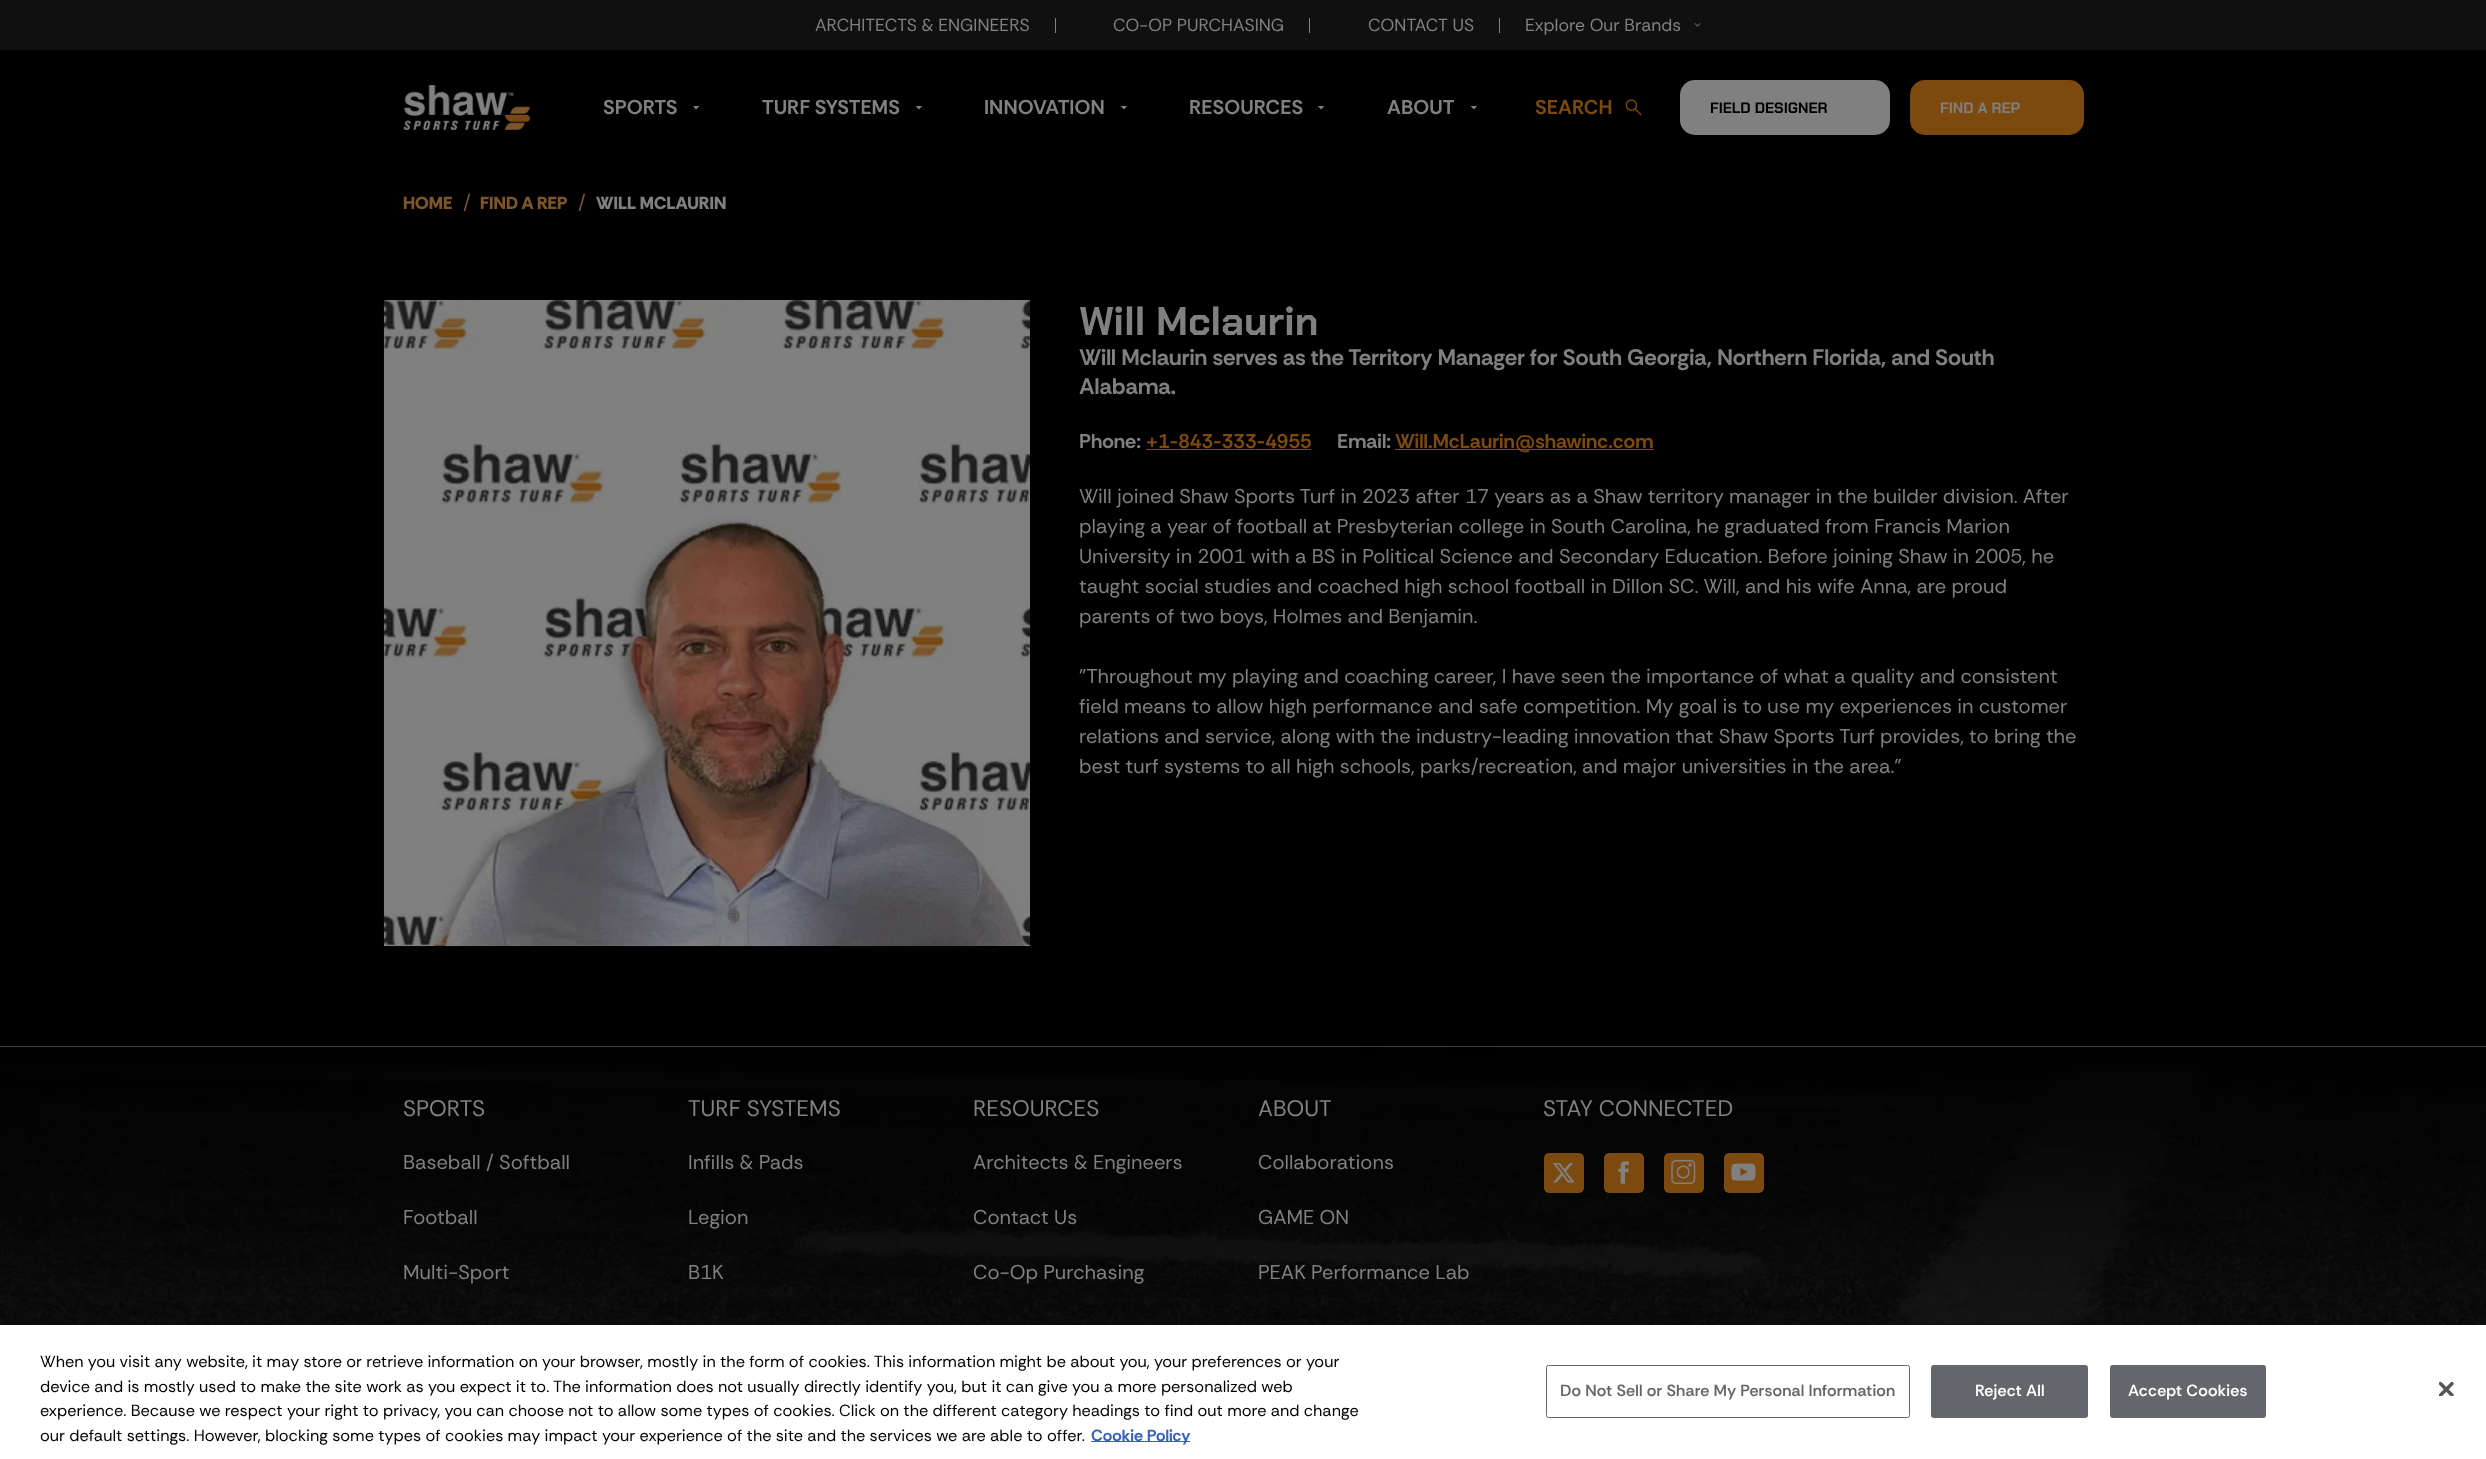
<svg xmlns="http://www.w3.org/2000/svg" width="2486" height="1459">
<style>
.a{font:17.5px Rethink Sans;fill:#808080}
.b{font:bold 20px Rethink Sans;fill:#808080}
.c{font:bold 20px Rethink Sans;fill:#7c490f}
.d{font:bold 15px Chakra Petch;fill:#000}
.e{font:bold 15px Chakra Petch;fill:#808080}
.f{font:800 17.5px Rethink Sans;fill:#7d552b}
.g{font:20px Rethink Sans;fill:#7d552b}
.h{font:800 17.5px Rethink Sans;fill:#808080}
.i{font:bold 40px Chakra Petch;fill:#808080}
.j{font:bold 22.5px Rethink Sans;fill:#808080}
.k{font:20px Rethink Sans;fill:#808080}
.l{font:22.5px Rethink Sans;fill:#808080}
.m{font:16.25px Rethink Sans;fill:#000}
.n{font:bold 16.25px Rethink Sans;fill:#3860be}
.o{font:600 16.25px Rethink Sans;letter-spacing:0.15px;fill:#63666a}
.p{font:600 16.25px Rethink Sans;letter-spacing:0.15px;fill:#fff}
</style>
<rect width="100%" height="100%" fill="#fff"/>
<path fill="#101010" d="M0 0h2486v50H0z"/>
<path fill="#808080" d="M1055 18h1v15H1055z"/>
<path fill="#808080" d="M1309 18h1v15H1309z"/>
<path fill="#808080" d="M1499 18h1v15H1499z"/>
<image href="1.png" x="1694" y="23" width="7" height="4"/>
<path fill="#000" d="M0 50h2486v996H0z"/>
<image href="2.png" x="403" y="85" width="127" height="45"/>
<path fill="#808080" d="M696 109.5l-3-3.5h6.5z"/>
<path fill="#808080" d="M919 109.5l-3.5-3.5h6.5z"/>
<path fill="#808080" d="M1124 109.5l-3.5-3.5h6.5z"/>
<path fill="#808080" d="M1321 109.5l-3-3.5h6.5z"/>
<path fill="#808080" d="M1474 109.5l-3.5-3.5h6.5z"/>
<image href="3.png" x="1625" y="99" width="17" height="17"/>
<rect fill="#808080" x="1680" y="80" width="210" height="55" rx="15"/>
<rect fill="#7c490f" x="1910" y="80" width="174" height="55" rx="15"/>
<image href="4.png" x="383" y="300" width="647" height="647"/>
<path fill="#7c490f" d="M1146 449h165v1H1146z"/>
<path fill="#7c490f" d="M1395 449h259v1H1395z"/>
<image href="5.png" x="0" y="1046" width="2486" height="279"/>
<rect fill="#7c490f" x="1544" y="1153" width="40" height="40" rx="5"/>
<image href="6.png" x="1553" y="1163" width="22" height="20"/>
<rect fill="#7c490f" x="1604" y="1153" width="40" height="40" rx="5"/>
<image href="7.png" x="1618" y="1161" width="12" height="23"/>
<rect fill="#7c490f" x="1664" y="1153" width="40" height="40" rx="5"/>
<image href="8.png" x="1671" y="1160" width="25" height="24"/>
<rect fill="#7c490f" x="1724" y="1153" width="40" height="40" rx="5"/>
<image href="9.png" x="1731" y="1163" width="25" height="18"/>
<path fill="#00000033" filter="blur(11px)" d="M0 1325h2486v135H0z"/>
<path fill="#fff" d="M0 1325h2486v134H0z"/>
<path fill="#3860be" d="M1091 1441h99v1H1091z"/>
<rect fill="none" stroke="#63666a" x="1546.5" y="1365.5" width="363" height="52" rx="2"/>
<rect fill="#63666a" stroke="#63666a" x="1931.5" y="1365.5" width="156" height="52" rx="2"/>
<rect fill="#63666a" stroke="#63666a" x="2110.5" y="1365.5" width="155" height="52" rx="2"/>
<image href="10.png" x="2439" y="1381" width="15" height="15"/>
<text class="a" x="815" y="31">ARCHITECTS &amp; ENGINEERS</text>
<text class="a" x="1113" y="31">CO-OP PURCHASING</text>
<text class="a" x="1368" y="31">CONTACT US</text>
<text class="a" x="1525" y="31">Explore Our Brands</text>
<text class="b" x="603" y="114">SPORTS</text>
<text class="b" x="762" y="114">TURF SYSTEMS</text>
<text class="b" x="984" y="114">INNOVATION</text>
<text class="b" x="1189" y="114">RESOURCES</text>
<text class="b" x="1387" y="114">ABOUT</text>
<text class="c" x="1535" y="114">SEARCH</text>
<text class="d" x="1710" y="113">FIELD DESIGNER</text>
<text class="e" x="1940" y="113">FIND A REP</text>
<text class="f" x="403" y="209">HOME</text>
<text class="g" x="463" y="209">/</text>
<text class="f" x="480" y="209">FIND A REP</text>
<text class="g" x="578" y="209">/</text>
<text class="h" x="596" y="209">WILL MCLAURIN</text>
<text class="i" x="1079" y="335">Will Mclaurin</text>
<text class="j" x="1079" y="365">Will Mclaurin serves as the Territory Manager for South Georgia, Northern Florida, and South</text>
<text class="j" x="1079" y="394">Alabama.</text>
<text class="b" x="1079" y="448">Phone:</text>
<text class="c" x="1146" y="448">+1-843-333-4955</text>
<text class="b" x="1337" y="448">Email:</text>
<text class="c" x="1395" y="448">Will.McLaurin@shawinc.com</text>
<text class="k" x="1079" y="503">Will joined Shaw Sports Turf in 2023 after 17 years as a Shaw territory manager in the builder division. After</text>
<text class="k" x="1079" y="533">playing a year of football at Presbyterian college in South Carolina, he graduated from Francis Marion</text>
<text class="k" x="1079" y="563">University in 2001 with a BS in Political Science and Secondary Education. Before joining Shaw in 2005, he</text>
<text class="k" x="1079" y="593">taught social studies and coached high school football in Dillon SC. Will, and his wife Anna, are proud</text>
<text class="k" x="1079" y="623">parents of two boys, Holmes and Benjamin.</text>
<text class="k" x="1079" y="683">"Throughout my playing and coaching career, I have seen the importance of what a quality and consistent</text>
<text class="k" x="1079" y="713">field means to allow high performance and safe competition. My goal is to use my experiences in customer</text>
<text class="k" x="1079" y="743">relations and service, along with the industry-leading innovation that Shaw Sports Turf provides, to bring the</text>
<text class="k" x="1079" y="773">best turf systems to all high schools, parks/recreation, and major universities in the area."</text>
<text class="l" x="403" y="1116">SPORTS</text>
<text class="k" x="403" y="1169">Baseball / Softball</text>
<text class="k" x="403" y="1224">Football</text>
<text class="k" x="403" y="1279">Multi-Sport</text>
<text class="l" x="688" y="1116">TURF SYSTEMS</text>
<text class="k" x="688" y="1169">Infills &amp; Pads</text>
<text class="k" x="688" y="1224">Legion</text>
<text class="k" x="688" y="1279">B1K</text>
<text class="l" x="973" y="1116">RESOURCES</text>
<text class="k" x="973" y="1169">Architects &amp; Engineers</text>
<text class="k" x="973" y="1224">Contact Us</text>
<text class="k" x="973" y="1279">Co-Op Purchasing</text>
<text class="l" x="1258" y="1116">ABOUT</text>
<text class="k" x="1258" y="1169">Collaborations</text>
<text class="k" x="1258" y="1224">GAME ON</text>
<text class="k" x="1258" y="1279">PEAK Performance Lab</text>
<text class="l" x="1543" y="1116">STAY CONNECTED</text>
<text class="m" x="40" y="1367">When you visit any website, it may store or retrieve information on your browser, mostly in the form of cookies. This information might be about you, your preferences or your</text>
<text class="m" x="40" y="1392">device and is mostly used to make the site work as you expect it to. The information does not usually directly identify you, but it can give you a more personalized web</text>
<text class="m" x="40" y="1416">experience. Because we respect your right to privacy, you can choose not to allow some types of cookies. Click on the different category headings to find out more and change</text>
<text class="m" x="40" y="1441">our default settings. However, blocking some types of cookies may impact your experience of the site and the services we are able to offer.</text>
<text class="n" x="1091" y="1441">Cookie Policy</text>
<text class="o" x="1560" y="1396">Do Not Sell or Share My Personal Information</text>
<text class="p" x="1975" y="1396">Reject All</text>
<text class="p" x="2128" y="1396">Accept Cookies</text>
</svg>
